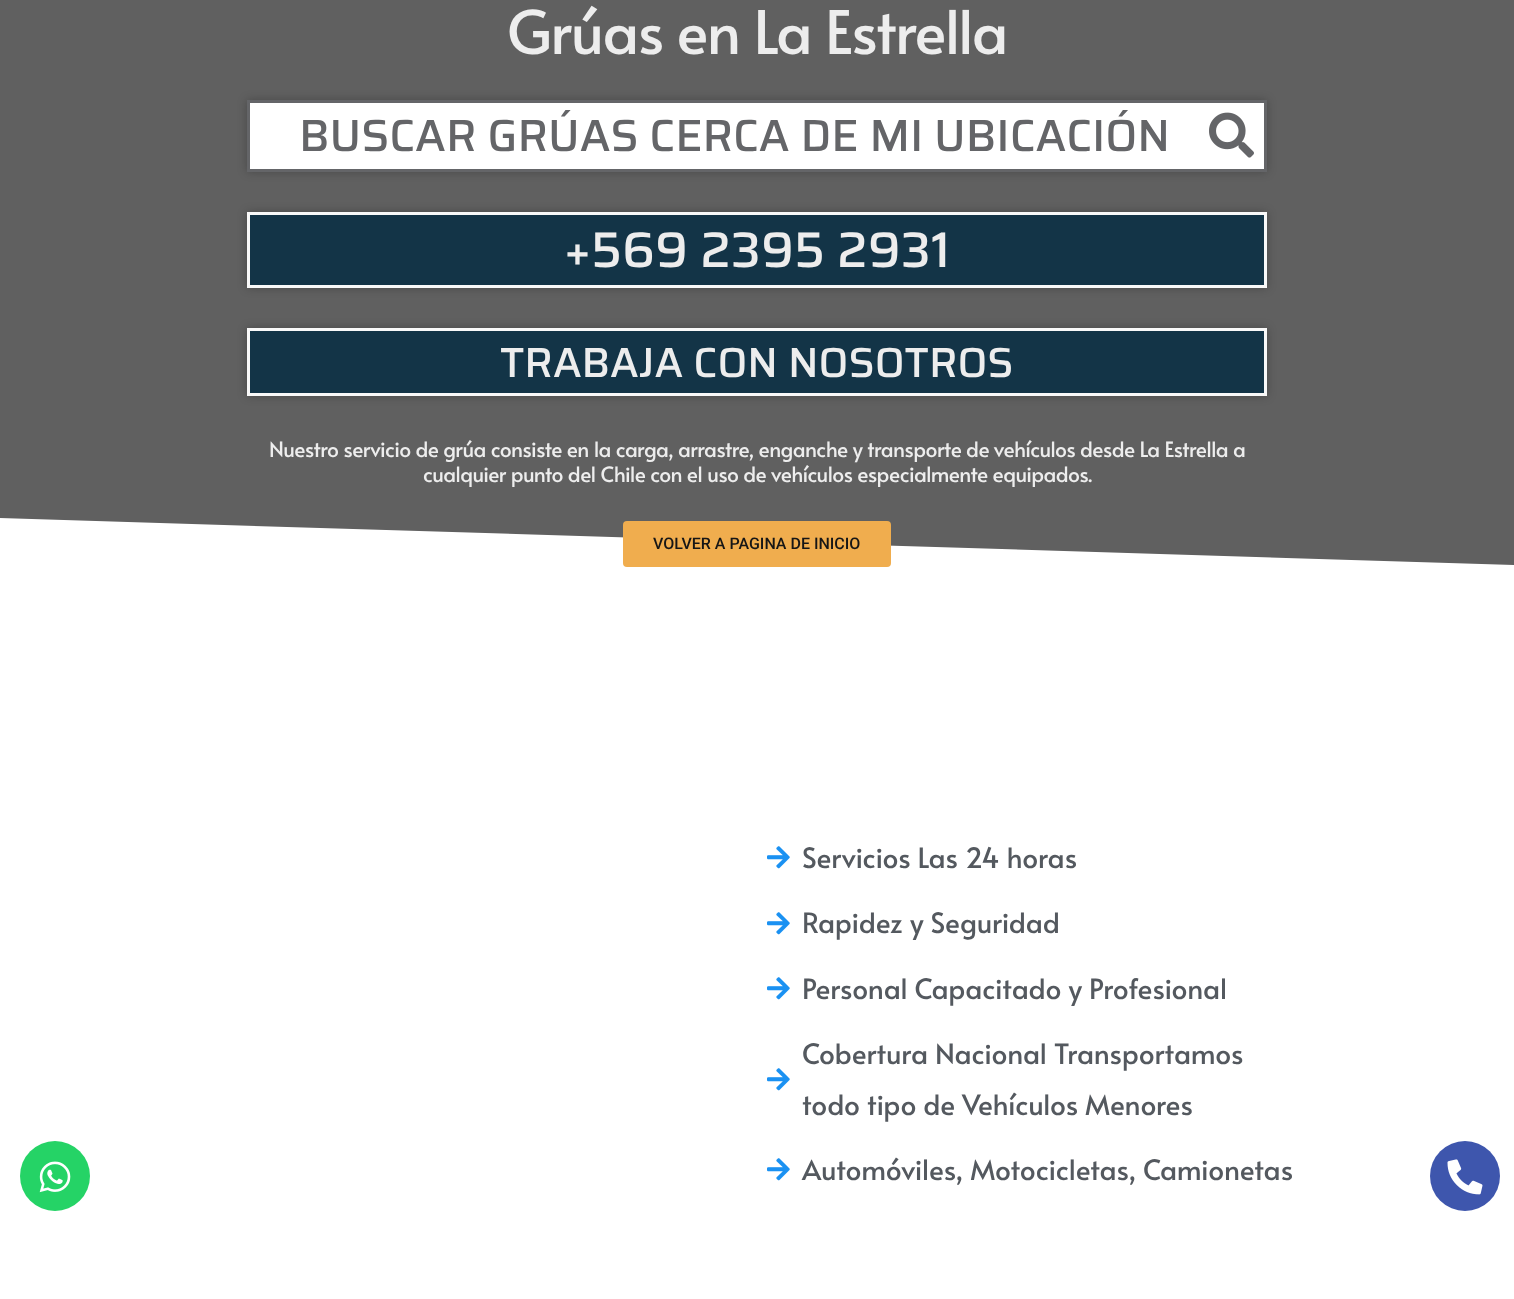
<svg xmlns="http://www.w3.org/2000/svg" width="1514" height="1299">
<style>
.a{font:60px Alata;letter-spacing:-1.2px;fill:#ededed}
.b{font:500 45px Saira;fill:#646568}
.c{font:500 50px Saira;fill:#ededed}
.d{font:500 42px Saira;fill:#ededed}
.e{font:21px Alata;letter-spacing:-0.42px;fill:#ededed}
.f{font:500 16px Roboto;fill:#161616}
.g{font:28px Alata;fill:#54595f}
</style>
<defs>
<clipPath id="clip1"><path d="M0 517h1514v50H0z"/></clipPath>
</defs>
<rect width="100%" height="100%" fill="#fff"/>
<path fill="#606060" d="M0 0h1514v565H0z"/>
<path fill="#00000040" filter="blur(5px)" d="M247 100h1020v72H247z"/>
<path fill="#fff" stroke="#646568" stroke-width="3" d="M248.5 101.5h1017v69H248.5z"/>
<image href="1.png" x="1209" y="112" width="45" height="46"/>
<path fill="#00000040" filter="blur(5px)" d="M247 212h1020v76H247z"/>
<path fill="#133447" stroke="#f9f9f9" stroke-width="3" d="M248.5 213.5h1017v73H248.5z"/>
<path fill="#00000040" filter="blur(5px)" d="M247 328h1020v68H247z"/>
<path fill="#133447" stroke="#f9f9f9" stroke-width="3" d="M248.5 329.5h1017v65H248.5z"/>
<g clip-path="url(#clip1)">
<path fill="#fff" d="M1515 565v3h-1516v-50z"/>
</g>
<rect fill="#f0ad4e" x="623" y="521" width="268" height="46" rx="4"/>
<image href="2.png" x="767" y="846" width="23" height="23"/>
<image href="2.png" x="767" y="912" width="23" height="23"/>
<image href="2.png" x="767" y="977" width="23" height="23"/>
<image href="2.png" x="767" y="1068" width="23" height="23"/>
<image href="2.png" x="767" y="1158" width="23" height="23"/>
<circle fill="#25d366" cx="55" cy="1176" r="35"/>
<image href="3.png" x="39" y="1161" width="32" height="32"/>
<circle fill="#3e56ad" cx="1465" cy="1176" r="35"/>
<image href="4.png" x="1447" y="1159" width="36" height="36"/>
<text class="a" x="507" y="54">Grúas en La Estrella</text>
<text class="b" x="299" y="151">BUSCAR GRÚAS CERCA DE MI UBICACIÓN</text>
<text class="c" x="564" y="267">+569 2395 2931</text>
<text class="d" x="500" y="377">TRABAJA CON NOSOTROS</text>
<text class="e" x="269" y="457">Nuestro servicio de grúa consiste en la carga, arrastre, enganche y transporte de vehículos desde La Estrella a</text>
<text class="e" x="423" y="482">cualquier punto del Chile con el uso de vehículos especialmente equipados.</text>
<text class="f" x="653" y="549">VOLVER A PAGINA DE INICIO</text>
<text class="g" x="802" y="868">Servicios Las 24 horas</text>
<text class="g" x="802" y="933">Rapidez y Seguridad</text>
<text class="g" x="802" y="999">Personal Capacitado y Profesional</text>
<text class="g" x="802" y="1064">Cobertura Nacional Transportamos</text>
<text class="g" x="802" y="1115">todo tipo de Vehículos Menores</text>
<text class="g" x="802" y="1180">Automóviles, Motocicletas, Camionetas</text>
</svg>
